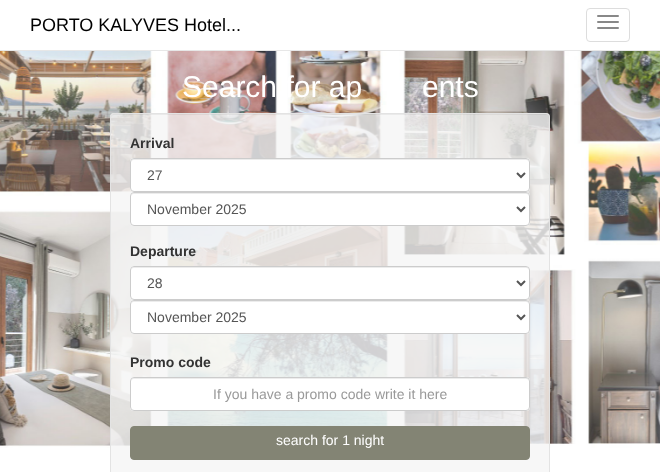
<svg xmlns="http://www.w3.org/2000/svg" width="660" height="472">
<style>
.a{font:18px Liberation Sans;fill:#000}
.b{font:30px Liberation Sans;fill:#fff}
.c{font:bold 14px Liberation Sans;fill:#333}
.d{font:14px Liberation Sans;fill:#555}
.e{font:14px Liberation Sans;fill:#999}
.f{font:14px Liberation Sans;fill:#fff}
</style>
<rect width="100%" height="100%" fill="#fff"/>
<image href="1.png" x="0" y="51" width="660" height="397"/>
<path fill="#e7e7e7" d="M0 50h660v1H0z"/>
<rect fill="none" stroke="#ddd" x="586.5" y="8.5" width="43" height="33" rx="3.5"/>
<rect fill="#888" x="597" y="15" width="22" height="2" rx="1"/>
<rect fill="#888" x="597" y="21" width="22" height="2" rx="1"/>
<rect fill="#888" x="597" y="27" width="22" height="2" rx="1"/>
<rect fill="#f5f5f5cc" x="110" y="113" width="440" height="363" rx="4"/>
<path fill="#0000000d" d="M114 115h432c2 0 3 1 3 3c0-2-1-4-3-4h-433l-2 2v2c0-2 1-3 3-3z"/>
<rect fill="none" stroke="#e3e3e3" x="110.5" y="113.5" width="439" height="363" rx="3.5"/>
<rect fill="#fff" x="130" y="158" width="400" height="34" rx="4"/>
<path fill="#ececec" d="M134 160h392c2 0 3 1 3 3c0-2-1-4-3-4h-392l-2 1l-1 3c0-2 1-3 3-3z"/>
<rect fill="none" stroke="#ccc" x="130.5" y="158.5" width="399" height="33" rx="3.5"/>
<path fill="none" stroke="#555" stroke-width="2" d="M517 173l4 4l4-4"/>
<rect fill="#fff" x="130" y="192" width="400" height="34" rx="4"/>
<path fill="#ececec" d="M134 194h392c2 0 3 1 3 3c0-2-1-4-3-4h-392l-2 1l-1 3c0-2 1-3 3-3z"/>
<rect fill="none" stroke="#ccc" x="130.5" y="192.5" width="399" height="33" rx="3.5"/>
<path fill="none" stroke="#555" stroke-width="2" d="M517 207l4 4l4-4"/>
<rect fill="#fff" x="130" y="266" width="400" height="34" rx="4"/>
<path fill="#ececec" d="M134 268h392c2 0 3 1 3 3c0-2-1-4-3-4h-392l-2 1l-1 3c0-2 1-3 3-3z"/>
<rect fill="none" stroke="#ccc" x="130.5" y="266.5" width="399" height="33" rx="3.5"/>
<path fill="none" stroke="#555" stroke-width="2" d="M517 281l4 4l4-4"/>
<rect fill="#fff" x="130" y="300" width="400" height="34" rx="4"/>
<path fill="#ececec" d="M134 302h392c2 0 3 1 3 3c0-2-1-4-3-4h-392l-2 1l-1 3c0-2 1-3 3-3z"/>
<rect fill="none" stroke="#ccc" x="130.5" y="300.5" width="399" height="33" rx="3.5"/>
<path fill="none" stroke="#555" stroke-width="2" d="M517 315l4 4l4-4"/>
<rect fill="#fff" x="130" y="377" width="400" height="34" rx="4"/>
<path fill="#ececec" d="M134 379h392c2 0 3 1 3 3c0-2-1-4-3-4h-392l-2 1l-1 3c0-2 1-3 3-3z"/>
<rect fill="none" stroke="#ccc" x="130.5" y="377.5" width="399" height="33" rx="3.5"/>
<rect fill="#838474" stroke="#838474" x="130.5" y="426.5" width="399" height="33" rx="3.5"/>
<text class="a" x="30" y="31">PORTO KALYVES Hotel...</text>
<text class="b" x="182" y="97">Search for ap</text>
<text class="b" x="422" y="97">ents</text>
<text class="c" x="130" y="148">Arrival</text>
<text class="d" x="147" y="180">27</text>
<text class="d" x="147" y="214">November 2025</text>
<text class="c" x="130" y="256">Departure</text>
<text class="d" x="147" y="288">28</text>
<text class="d" x="147" y="322">November 2025</text>
<text class="c" x="130" y="367">Promo code</text>
<text class="e" x="213" y="399">If you have a promo code write it here</text>
<text class="f" x="276" y="445">search for 1 night</text>
</svg>
